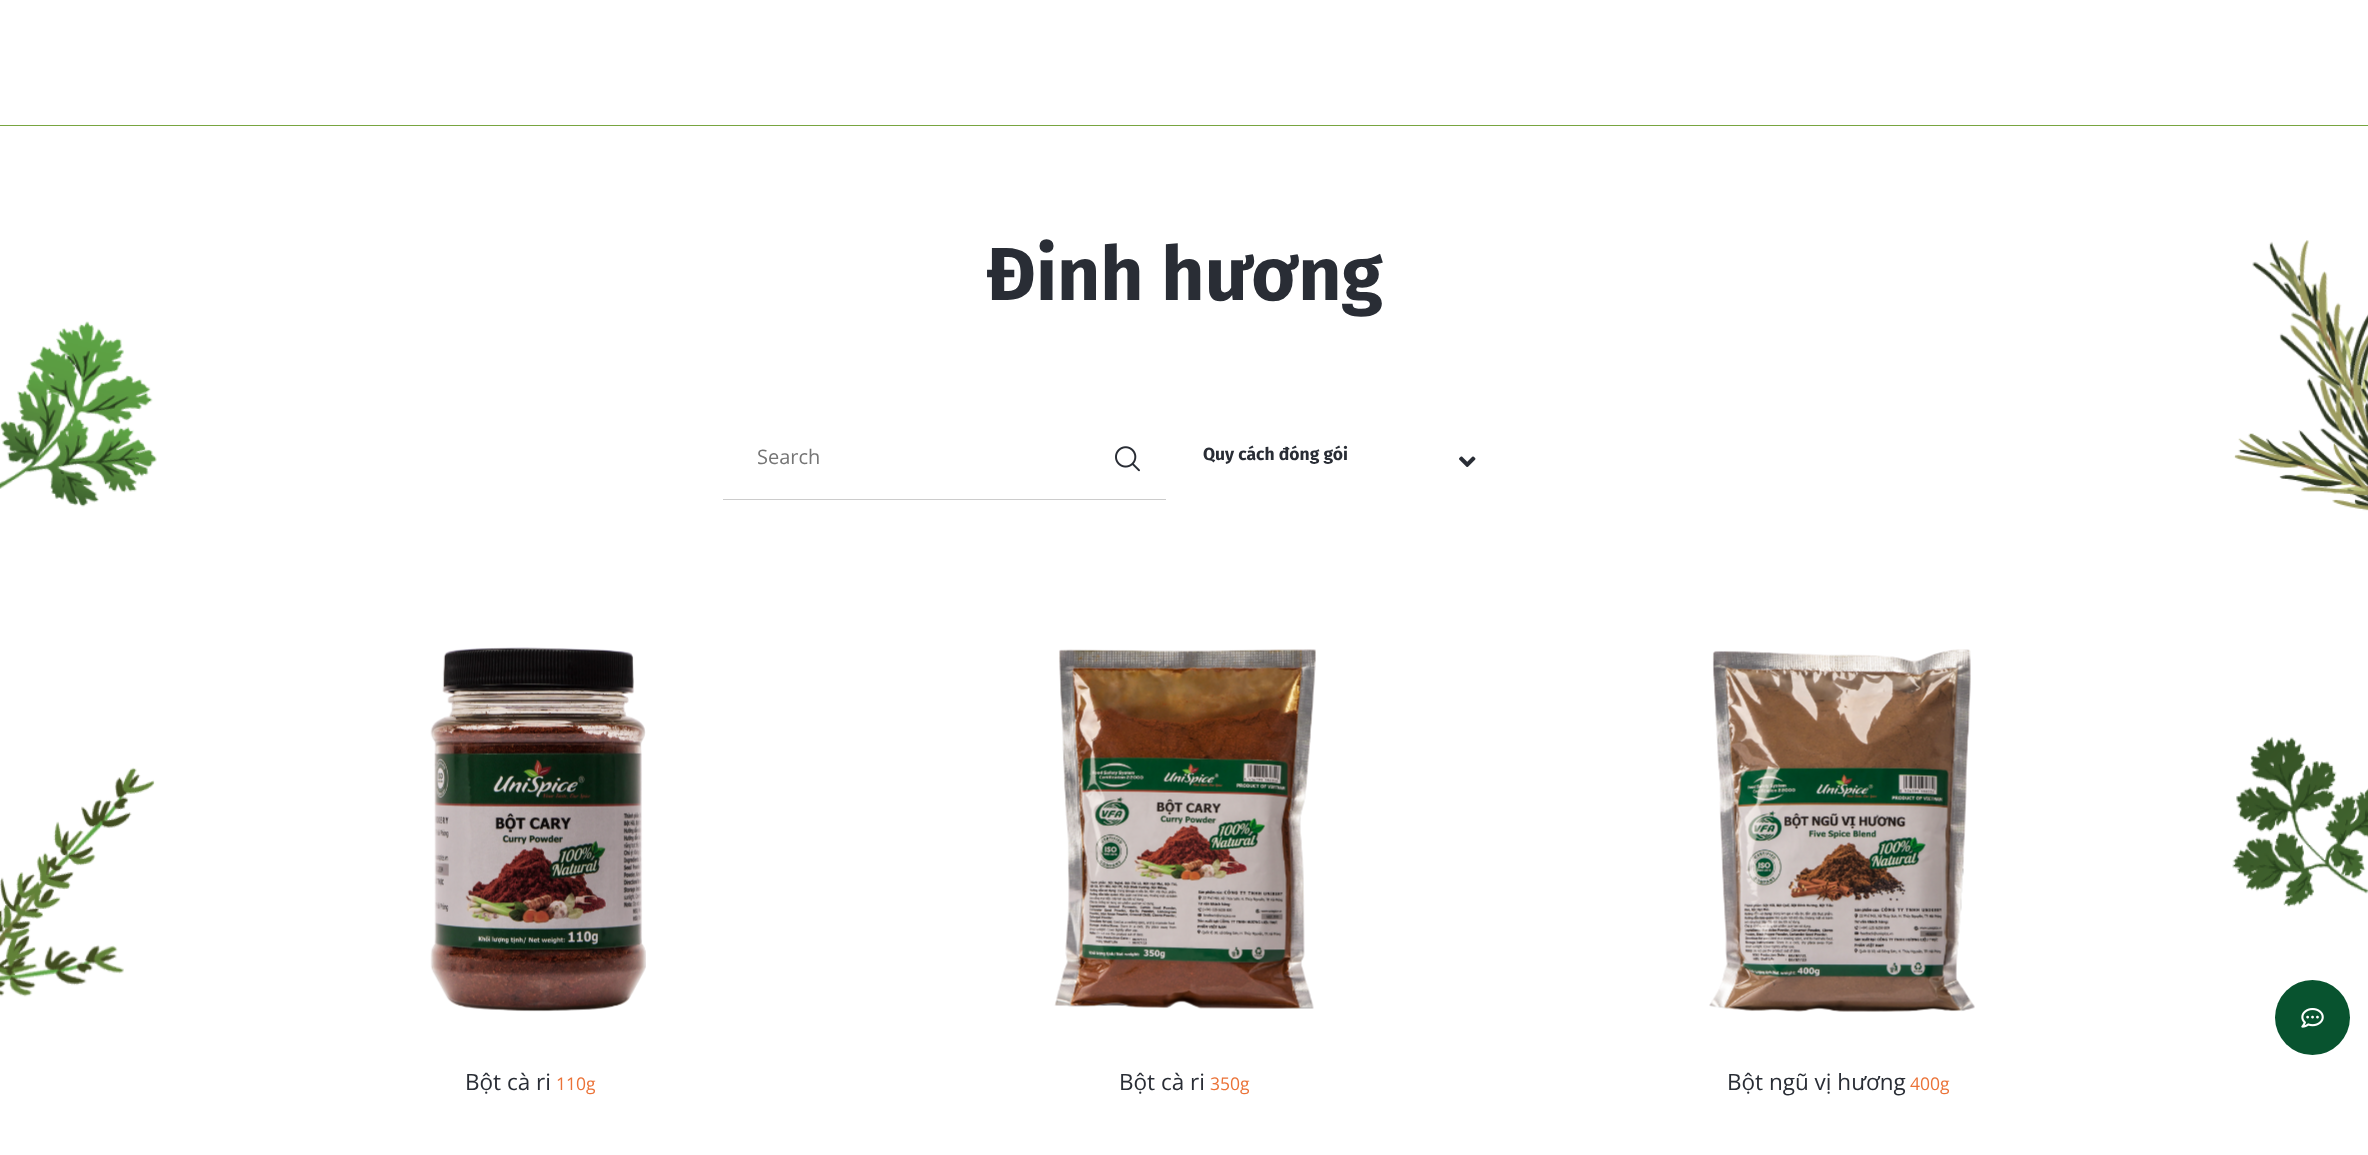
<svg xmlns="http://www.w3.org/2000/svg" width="2368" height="1155">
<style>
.a{font:bold 75px Fira Sans;fill:#292d35}
.b{font:20px Open Sans;fill:#757575}
.c{font:bold 17.5px Fira Sans;fill:#292d35}
.d{font:22.5px Open Sans;fill:#292d35}
.e{font:17.5px Open Sans;fill:#eb7237}
</style>
<rect width="100%" height="100%" fill="#fff"/>
<path fill="#78a540" d="M0 125h2368v1H0z"/>
<image href="1.png" x="0" y="321" width="157" height="676"/>
<image href="2.png" x="2232" y="240" width="136" height="667"/>
<path fill="#ccc" d="M723 499h443v1H723z"/>
<image href="3.png" x="1115" y="446" width="25" height="26"/>
<image href="4.png" x="1459" y="456" width="17" height="11"/>
<image href="5.png" x="430" y="647" width="216" height="365"/>
<image href="6.png" x="1054" y="649" width="262" height="360"/>
<image href="7.png" x="1709" y="649" width="266" height="363"/>
<circle fill="#08532f" cx="2312.5" cy="1017.5" r="37.5"/>
<image href="8.png" x="2301" y="1008" width="23" height="20"/>
<text class="a" x="986" y="300">Đinh hương</text>
<text class="b" x="757" y="464">Search</text>
<text class="c" x="1203" y="460">Quy cách đóng gói</text>
<text class="d" x="465" y="1090">Bột cà ri</text>
<text class="e" x="556" y="1090">110g</text>
<text class="d" x="1119" y="1090">Bột cà ri</text>
<text class="e" x="1210" y="1090">350g</text>
<text class="d" x="1727" y="1090">Bột ngũ vị hương</text>
<text class="e" x="1910" y="1090">400g</text>
</svg>
